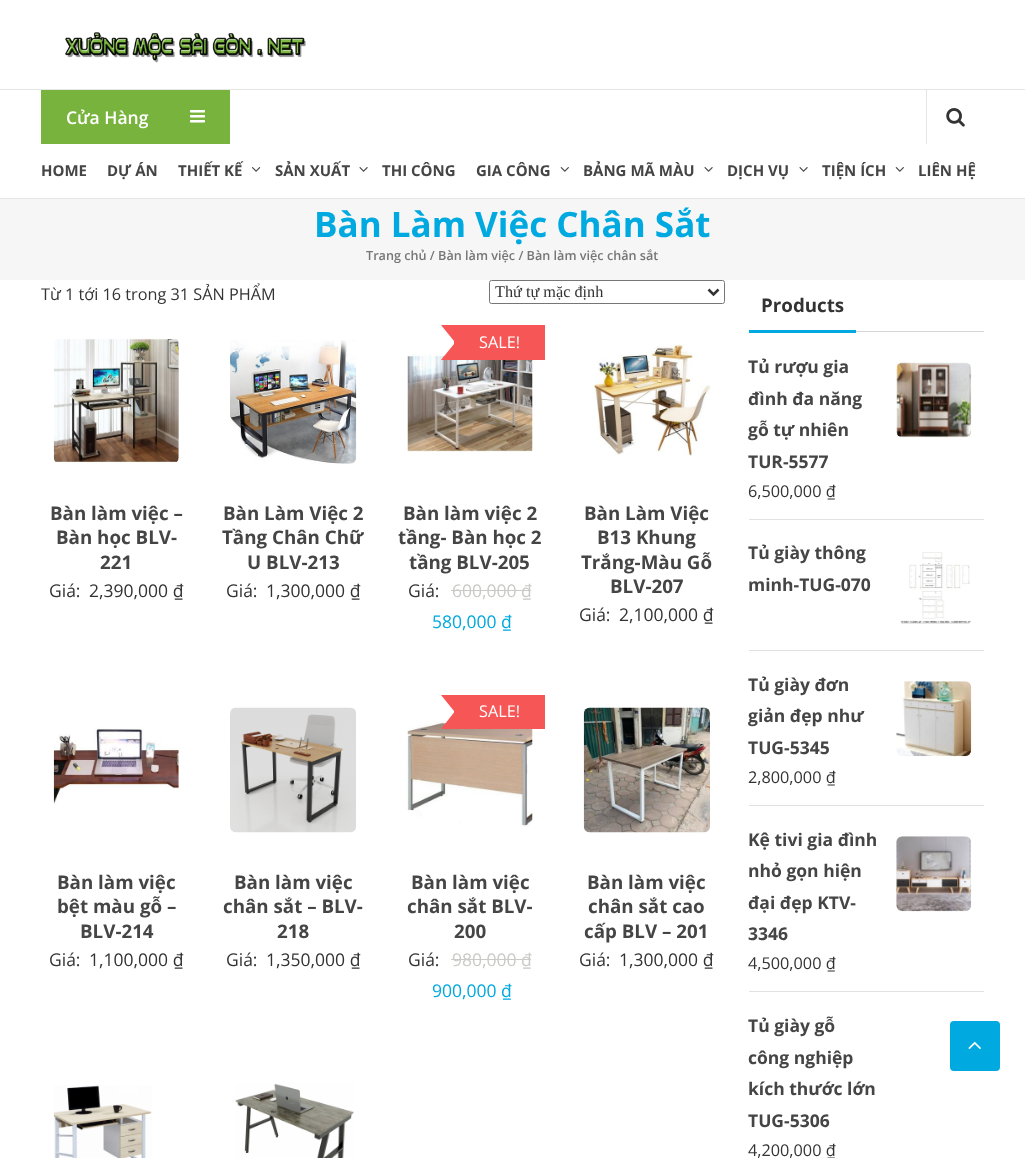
<svg xmlns="http://www.w3.org/2000/svg" width="1025" height="1158">
<style>
.a{font:600 17.5px Open Sans;fill:#fff}
.b{font:bold 15px Open Sans;fill:#454545}
.c{font:bold 35px Open Sans;fill:#00a9e0}
.d{font:600 12.65px Open Sans;fill:#767676}
.e{font:16.25px Open Sans;fill:#333}
.f{font:16.25px Liberation Serif;fill:#333}
.g{font:bold 18.75px Open Sans;fill:#454545}
.h{font:17.5px Open Sans;fill:#333}
.i{font:16.25px Open Sans;fill:#fff}
.j{font:17.5px Open Sans;fill:#cacbc7}
.k{font:17.5px Open Sans;fill:#00a9e0}
.l{font:bold 18.75px Open Sans;fill:#333}
.m{font:bold 17.5px Open Sans;fill:#454545}
</style>
<rect width="100%" height="100%" fill="#fff"/>
<image href="1.png" x="65" y="32" width="241" height="31"/>
<path fill="#e5e5e5" d="M0 89h1025v1H0z"/>
<path fill="#e5e5e5" d="M0 198h1025v1H0z"/>
<path fill="#78b43d" d="M41 90h189v54H41z"/>
<image href="2.png" x="190" y="110" width="15" height="13"/>
<path fill="#e5e5e5" d="M926 90h1v54H926z"/>
<image href="3.png" x="946" y="108" width="19" height="19"/>
<image href="4.png" x="251" y="167" width="10" height="5"/>
<image href="5.png" x="359" y="167" width="9" height="5"/>
<image href="6.png" x="560" y="167" width="9" height="5"/>
<image href="5.png" x="704" y="167" width="9" height="5"/>
<image href="5.png" x="799" y="167" width="9" height="5"/>
<image href="6.png" x="895" y="167" width="9" height="5"/>
<path fill="#f6f6f6" d="M0 199h1025v81H0z"/>
<rect fill="none" stroke="#767676" x="489.5" y="280.5" width="235" height="23" rx="2"/>
<path fill="none" stroke="#333" stroke-width="2.5" d="M708.5 289.5l5 5l5-5"/>
<image href="7.png" x="53" y="338" width="126" height="125"/>
<image href="8.png" x="230" y="340" width="127" height="124"/>
<image href="9.png" x="407" y="354" width="126" height="98"/>
<path fill="#f65656" d="M454 325h91v35H454z"/>
<path fill="#f65656" d="M454 325v16l-13-16zm0 19v16h-13z"/>
<path fill="#cacbc7" d="M451 590h80v1H451z"/>
<image href="10.png" x="592" y="344" width="118" height="112"/>
<image href="11.png" x="53" y="727" width="126" height="77"/>
<image href="12.png" x="230" y="707" width="126" height="126"/>
<image href="13.png" x="407" y="721" width="126" height="106"/>
<path fill="#f65656" d="M454 695h91v34H454z"/>
<path fill="#f65656" d="M454 695v16l-13-16zm0 17.5v16.5h-13z"/>
<path fill="#cacbc7" d="M451 959h80v1H451z"/>
<image href="14.png" x="583" y="707" width="127" height="126"/>
<image href="15.png" x="53" y="1085" width="99" height="73"/>
<image href="16.png" x="235" y="1083" width="119" height="75"/>
<path fill="#d6d6d6" d="M856 331h128v1H856z"/>
<path fill="#00a9e0" d="M749 330h107v3H749z"/>
<path fill="#e1e1e1" d="M749 519h235v1H749z"/>
<image href="17.png" x="896" y="362" width="76" height="76"/>
<path fill="#e1e1e1" d="M749 650h235v1H749z"/>
<image href="18.png" x="900" y="552" width="71" height="72"/>
<path fill="#e1e1e1" d="M749 805h235v1H749z"/>
<image href="19.png" x="896" y="681" width="76" height="76"/>
<path fill="#e1e1e1" d="M749 991h235v1H749z"/>
<image href="20.png" x="896" y="836" width="76" height="76"/>
<rect fill="#00a9e0" x="950" y="1021" width="50" height="50" rx="4"/>
<image href="21.png" x="968" y="1041" width="13" height="9"/>
<text class="a" x="66" y="124">Cửa Hàng</text>
<text class="b" x="41" y="176">HOME</text>
<text class="b" x="107" y="176">DỰ ÁN</text>
<text class="b" x="178" y="176">THIẾT KẾ</text>
<text class="b" x="275" y="176">SẢN XUẤT</text>
<text class="b" x="382" y="176">THI CÔNG</text>
<text class="b" x="476" y="176">GIA CÔNG</text>
<text class="b" x="583" y="176">BẢNG MÃ MÀU</text>
<text class="b" x="727" y="176">DỊCH VỤ</text>
<text class="b" x="822" y="176">TIỆN ÍCH</text>
<text class="b" x="918" y="176">LIÊN HỆ</text>
<text class="c" x="314" y="237">Bàn Làm Việc Chân Sắt</text>
<text class="d" x="366" y="260">Trang chủ / Bàn làm việc / Bàn làm việc chân sắt</text>
<text class="e" x="41" y="300">Từ 1 tới 16 trong 31 SẢN PHẨM</text>
<text class="f" x="495" y="297">Thứ tự mặc định</text>
<text class="g" x="50" y="520">Bàn làm việc –</text>
<text class="g" x="56" y="544">Bàn học BLV-</text>
<text class="g" x="100" y="569">221</text>
<text class="h" x="49" y="597">Giá:</text>
<text class="h" x="89" y="597">2,390,000 ₫</text>
<text class="g" x="223" y="520">Bàn Làm Việc 2</text>
<text class="g" x="222" y="544">Tầng Chân Chữ</text>
<text class="g" x="247" y="569">U BLV-213</text>
<text class="h" x="226" y="597">Giá:</text>
<text class="h" x="266" y="597">1,300,000 ₫</text>
<text class="i" x="479" y="348">SALE!</text>
<text class="g" x="403" y="520">Bàn làm việc 2</text>
<text class="g" x="398" y="544">tầng- Bàn học 2</text>
<text class="g" x="409" y="569">tầng BLV-205</text>
<text class="h" x="408" y="597">Giá:</text>
<text class="j" x="452" y="597">600,000 ₫</text>
<text class="k" x="432" y="628">580,000 ₫</text>
<text class="g" x="584" y="520">Bàn Làm Việc</text>
<text class="g" x="597" y="544">B13 Khung</text>
<text class="g" x="581" y="569">Trắng-Màu Gỗ</text>
<text class="g" x="610" y="593">BLV-207</text>
<text class="h" x="579" y="621">Giá:</text>
<text class="h" x="619" y="621">2,100,000 ₫</text>
<text class="g" x="57" y="889">Bàn làm việc</text>
<text class="g" x="57" y="913">bệt màu gỗ –</text>
<text class="g" x="80" y="938">BLV-214</text>
<text class="h" x="49" y="966">Giá:</text>
<text class="h" x="89" y="966">1,100,000 ₫</text>
<text class="g" x="234" y="889">Bàn làm việc</text>
<text class="g" x="223" y="913">chân sắt – BLV-</text>
<text class="g" x="277" y="938">218</text>
<text class="h" x="226" y="966">Giá:</text>
<text class="h" x="266" y="966">1,350,000 ₫</text>
<text class="i" x="479" y="717">SALE!</text>
<text class="g" x="411" y="889">Bàn làm việc</text>
<text class="g" x="407" y="913">chân sắt BLV-</text>
<text class="g" x="454" y="938">200</text>
<text class="h" x="408" y="966">Giá:</text>
<text class="j" x="452" y="966">980,000 ₫</text>
<text class="k" x="432" y="997">900,000 ₫</text>
<text class="g" x="587" y="889">Bàn làm việc</text>
<text class="g" x="588" y="913">chân sắt cao</text>
<text class="g" x="584" y="938">cấp BLV – 201</text>
<text class="h" x="579" y="966">Giá:</text>
<text class="h" x="619" y="966">1,300,000 ₫</text>
<text class="l" x="761" y="312">Products</text>
<text class="m" x="748" y="373">Tủ rượu gia</text>
<text class="m" x="748" y="405">đình đa năng</text>
<text class="m" x="748" y="436">gỗ tự nhiên</text>
<text class="m" x="748" y="468">TUR-5577</text>
<text class="e" x="748" y="497">6,500,000 ₫</text>
<text class="m" x="748" y="559">Tủ giày thông</text>
<text class="m" x="748" y="591">minh-TUG-070</text>
<text class="m" x="748" y="691">Tủ giày đơn</text>
<text class="m" x="748" y="722">giản đẹp như</text>
<text class="m" x="748" y="754">TUG-5345</text>
<text class="e" x="748" y="783">2,800,000 ₫</text>
<text class="m" x="748" y="846">Kệ tivi gia đình</text>
<text class="m" x="748" y="877">nhỏ gọn hiện</text>
<text class="m" x="748" y="909">đại đẹp KTV-</text>
<text class="m" x="748" y="940">3346</text>
<text class="e" x="748" y="969">4,500,000 ₫</text>
<text class="m" x="748" y="1032">Tủ giày gỗ</text>
<text class="m" x="748" y="1064">công nghiệp</text>
<text class="m" x="748" y="1095">kích thước lớn</text>
<text class="m" x="748" y="1127">TUG-5306</text>
<text class="e" x="748" y="1156">4,200,000 ₫</text>
</svg>
